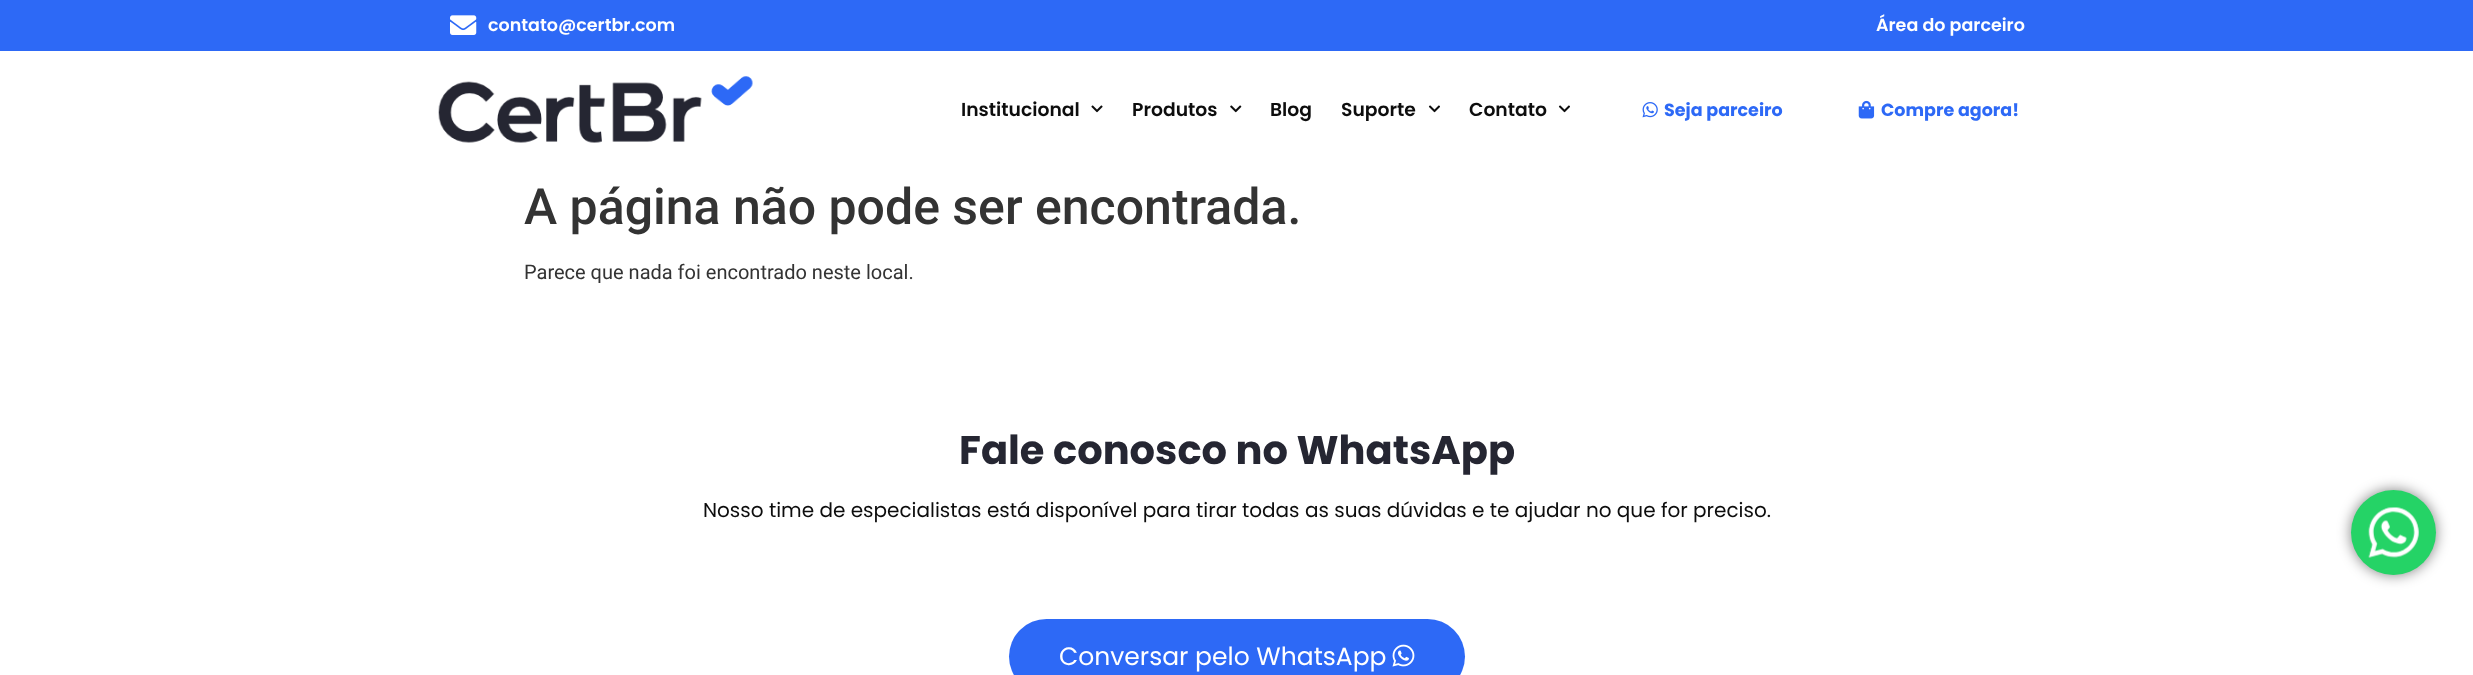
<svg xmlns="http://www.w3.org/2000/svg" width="2473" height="675">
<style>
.a{font:600 17.5px Poppins;fill:#fff}
.b{font:600 18.75px Poppins;fill:#0d0d0d}
.c{font:bold 17.5px Poppins;fill:#2d69f6}
.d{font:500 50px Roboto;fill:#333}
.e{font:20px Roboto;fill:#333}
.f{font:bold 40px Poppins;fill:#252632}
.g{font:20px Poppins;fill:#0d0d0d}
.h{font:25px Poppins;fill:#fff}
</style>
<rect width="100%" height="100%" fill="#fff"/>
<path fill="#2d69f6" d="M0 0h2473v51H0z"/>
<image href="1.png" x="450" y="15" width="27" height="20"/>
<image href="2.png" x="438" y="76" width="315" height="67"/>
<image href="3.png" x="1091" y="105" width="12" height="8"/>
<image href="4.png" x="1230" y="105" width="12" height="8"/>
<image href="5.png" x="1428" y="105" width="12" height="8"/>
<image href="5.png" x="1558" y="105" width="12" height="8"/>
<image href="6.png" x="1642" y="102" width="16" height="16"/>
<image href="7.png" x="1858" y="100" width="17" height="19"/>
<rect fill="#2d69f6" x="1009" y="619" width="456" height="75" rx="37.5"/>
<image href="8.png" x="1392" y="644" width="23" height="23"/>
<rect fill="#00000080" filter="blur(7px)" x="2351" y="490" width="85" height="85" rx="42.5"/>
<circle fill="#25d366" cx="2393.5" cy="532.5" r="42.5"/>
<image href="9.png" x="2368" y="507" width="51" height="51"/>
<text class="a" x="488" y="31">contato@certbr.com</text>
<text class="a" x="1876" y="31">Área do parceiro</text>
<text class="b" x="961" y="116">Institucional</text>
<text class="b" x="1132" y="116">Produtos</text>
<text class="b" x="1270" y="116">Blog</text>
<text class="b" x="1341" y="116">Suporte</text>
<text class="b" x="1469" y="116">Contato</text>
<text class="c" x="1664" y="116">Seja parceiro</text>
<text class="c" x="1881" y="116">Compre agora!</text>
<text class="d" x="524" y="224">A página não pode ser encontrada.</text>
<text class="e" x="524" y="279">Parece que nada foi encontrado neste local.</text>
<text class="f" x="959" y="464">Fale conosco no WhatsApp</text>
<text class="g" x="703" y="517">Nosso time de especialistas está disponível para tirar todas as suas dúvidas e te ajudar no que for preciso.</text>
<text class="h" x="1059" y="665">Conversar pelo WhatsApp</text>
</svg>
